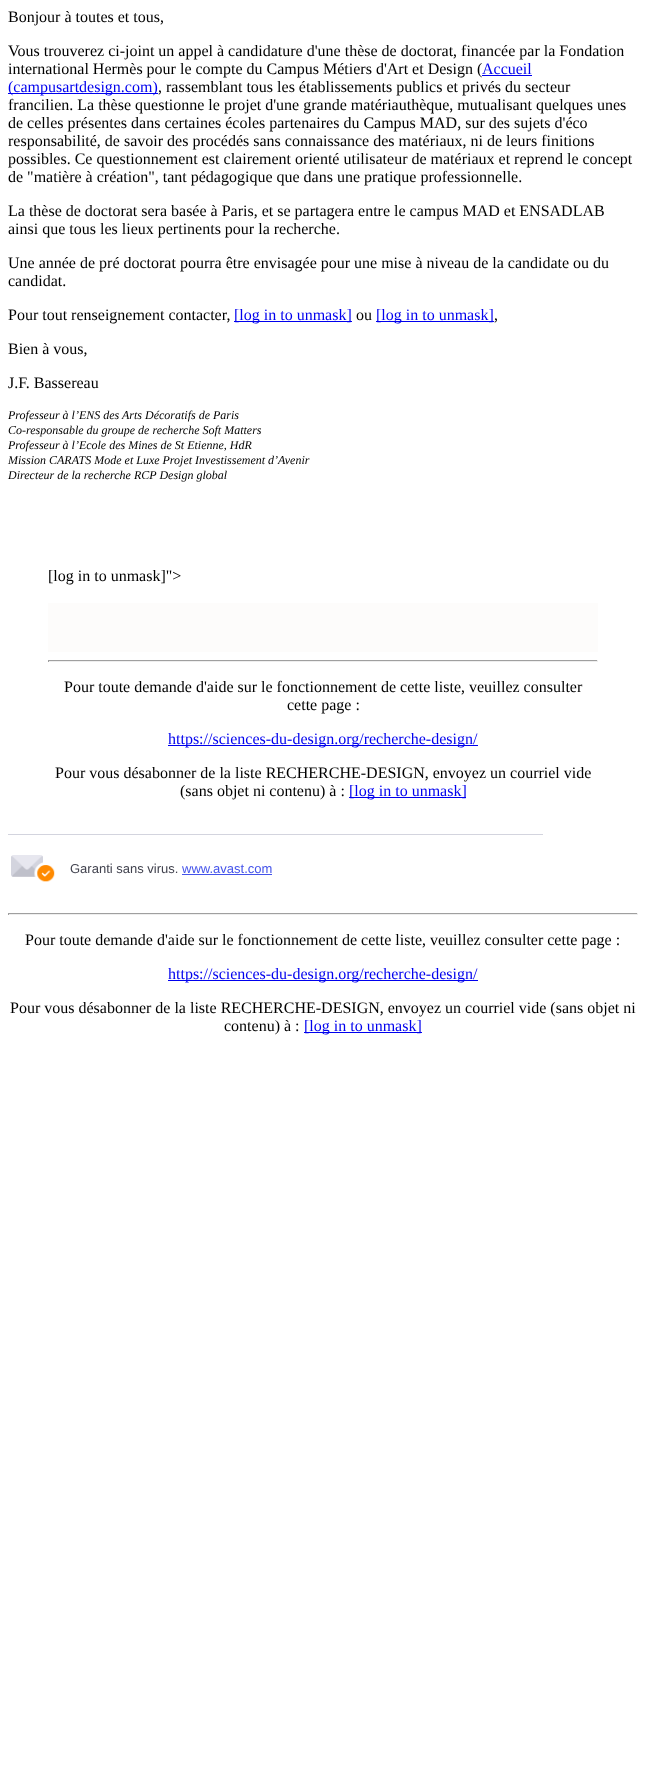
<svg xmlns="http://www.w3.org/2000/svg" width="646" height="1786">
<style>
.a{font:16px Liberation Serif;fill:#000}
.b{font:16px Liberation Serif;fill:#00e}
.c{font:italic 12px Liberation Serif;fill:#000}
.d{font:13px Liberation Sans;fill:#41424e}
.e{font:13px Liberation Sans;fill:#4453ea}
</style>
<rect width="100%" height="100%" fill="#fff"/>
<path fill="#00e" d="M482 75h50v1H482z"/>
<path fill="#00e" d="M8 93h150v1H8z"/>
<path fill="#00e" d="M234 321h118v1H234z"/>
<path fill="#00e" d="M376 321h118v1H376z"/>
<path fill="#fdfcfb" d="M48 603h550v49H48z"/>
<path fill="#9f9f9f" d="M48 660h550v1H48z"/>
<path fill="#eee" d="M597 660h1v2H597z"/>
<path fill="#eee" d="M48 661h550v1H48z"/>
<path fill="#9f9f9f" d="M48 660h1v2H48z"/>
<path fill="#00e" d="M168 745h310v1H168z"/>
<path fill="#00e" d="M349 797h117v1H349z"/>
<path fill="#d3d4de" d="M8 834h535v1H8z"/>
<image href="1.png" x="11" y="855" width="44" height="27"/>
<path fill="#4453ea" d="M182 874h90v1H182z"/>
<path fill="#9f9f9f" d="M8 913h630v1H8z"/>
<path fill="#eee" d="M637 913h1v2H637z"/>
<path fill="#eee" d="M8 914h630v1H8z"/>
<path fill="#9f9f9f" d="M8 913h1v2H8z"/>
<path fill="#00e" d="M168 980h310v1H168z"/>
<path fill="#00e" d="M304 1032h118v1H304z"/>
<text class="a" x="8" y="22">Bonjour à toutes et tous,</text>
<text class="a" x="8" y="56">Vous trouverez ci-joint un appel à candidature d'une thèse de doctorat, financée par la Fondation</text>
<text class="a" x="8" y="74">international Hermès pour le compte du Campus Métiers d'Art et Design (</text>
<text class="b" x="482" y="74">Accueil</text>
<text class="b" x="8" y="92">(campusartdesign.com)</text>
<text class="a" x="158" y="92">, rassemblant tous les établissements publics et privés du secteur</text>
<text class="a" x="8" y="110">francilien. La thèse questionne le projet d'une grande matériauthèque, mutualisant quelques unes</text>
<text class="a" x="8" y="128">de celles présentes dans certaines écoles partenaires du Campus MAD, sur des sujets d'éco</text>
<text class="a" x="8" y="146">responsabilité, de savoir des procédés sans connaissance des matériaux, ni de leurs finitions</text>
<text class="a" x="8" y="164">possibles. Ce questionnement est clairement orienté utilisateur de matériaux et reprend le concept</text>
<text class="a" x="8" y="182">de "matière à création", tant pédagogique que dans une pratique professionnelle.</text>
<text class="a" x="8" y="216">La thèse de doctorat sera basée à Paris, et se partagera entre le campus MAD et ENSADLAB</text>
<text class="a" x="8" y="234">ainsi que tous les lieux pertinents pour la recherche.</text>
<text class="a" x="8" y="268">Une année de pré doctorat pourra être envisagée pour une mise à niveau de la candidate ou du</text>
<text class="a" x="8" y="286">candidat.</text>
<text class="a" x="8" y="320">Pour tout renseignement contacter,</text>
<text class="b" x="234" y="320">[log in to unmask]</text>
<text class="a" x="356" y="320">ou</text>
<text class="b" x="376" y="320">[log in to unmask]</text>
<text class="a" x="494" y="320">,</text>
<text class="a" x="8" y="354">Bien à vous,</text>
<text class="a" x="8" y="388">J.F. Bassereau</text>
<text class="c" x="8" y="419">Professeur à l’ENS des Arts Décoratifs de Paris</text>
<text class="c" x="8" y="434">Co-responsable du groupe de recherche Soft Matters</text>
<text class="c" x="8" y="449">Professeur à l’Ecole des Mines de St Etienne, HdR</text>
<text class="c" x="8" y="464">Mission CARATS Mode et Luxe Projet Investissement d’Avenir</text>
<text class="c" x="8" y="479">Directeur de la recherche RCP Design global</text>
<text class="a" x="48" y="581">[log in to unmask]"&gt;</text>
<text class="a" x="64" y="692">Pour toute demande d'aide sur le fonctionnement de cette liste, veuillez consulter</text>
<text class="a" x="287" y="710">cette page :</text>
<text class="b" x="168" y="744">https://sciences-du-design.org/recherche-design/</text>
<text class="a" x="55" y="778">Pour vous désabonner de la liste RECHERCHE-DESIGN, envoyez un courriel vide</text>
<text class="a" x="180" y="796">(sans objet ni contenu) à :</text>
<text class="b" x="349" y="796">[log in to unmask]</text>
<text class="d" x="70" y="873">Garanti sans virus.</text>
<text class="e" x="182" y="873">www.avast.com</text>
<text class="a" x="25" y="945">Pour toute demande d'aide sur le fonctionnement de cette liste, veuillez consulter cette page :</text>
<text class="b" x="168" y="979">https://sciences-du-design.org/recherche-design/</text>
<text class="a" x="10" y="1013">Pour vous désabonner de la liste RECHERCHE-DESIGN, envoyez un courriel vide (sans objet ni</text>
<text class="a" x="224" y="1031">contenu) à :</text>
<text class="b" x="304" y="1031">[log in to unmask]</text>
</svg>
